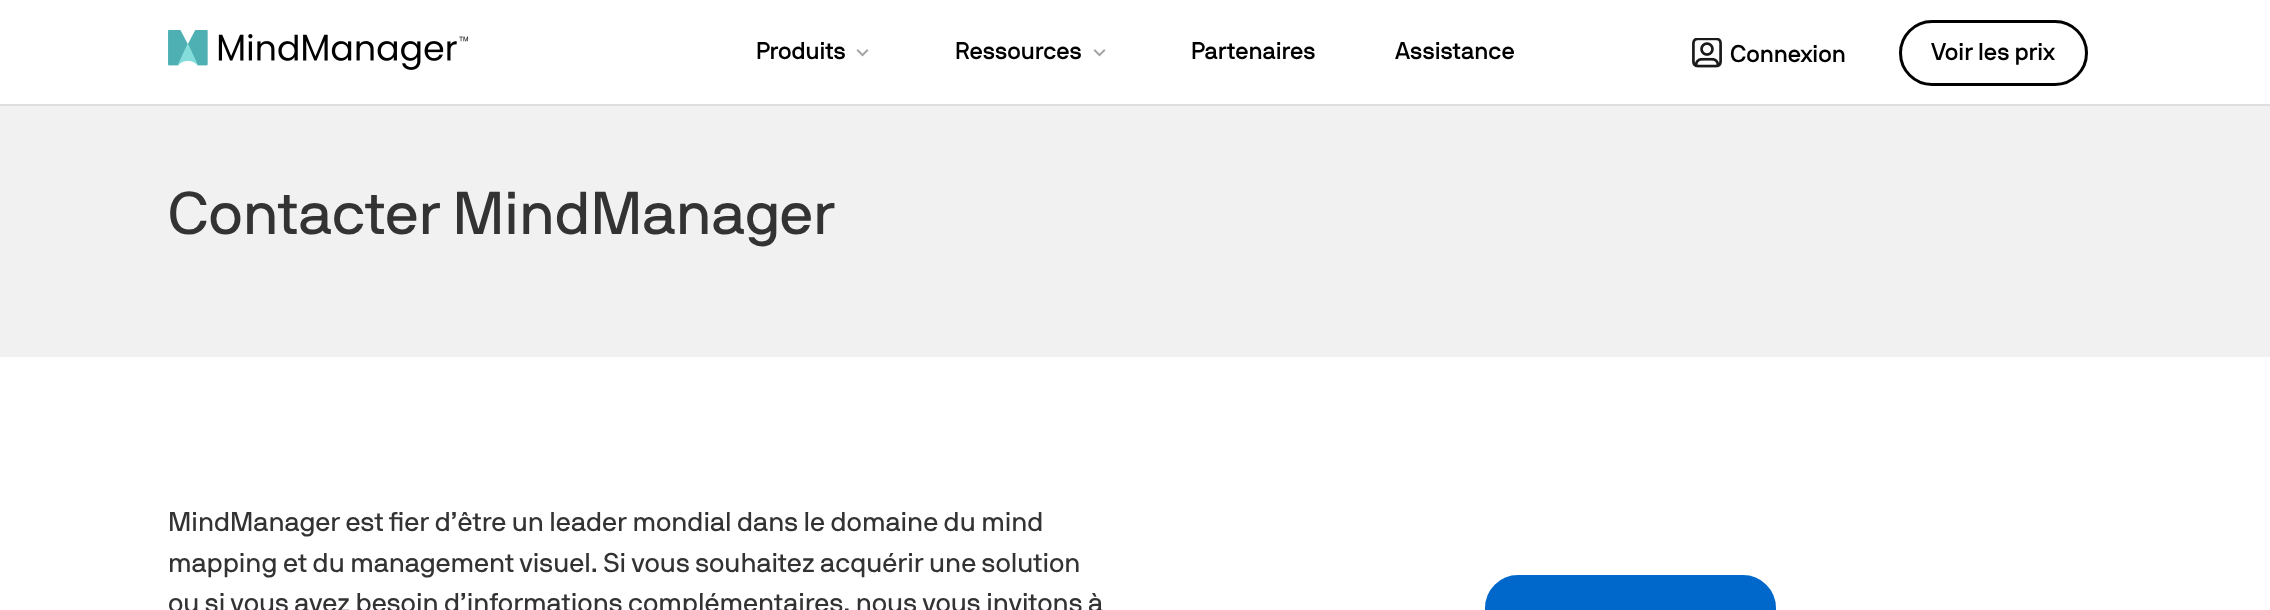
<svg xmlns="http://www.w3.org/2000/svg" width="2270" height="610">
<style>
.a{font:500 24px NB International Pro;fill:#000}
.b{font:60px NB International Pro;fill:#333}
.c{font:27px NB International Pro;fill:#333}
</style>
<rect width="100%" height="100%" fill="#fff"/>
<path fill="#dedede" d="M0 104h2270v2H0z"/>
<image href="1.png" x="168" y="30" width="300" height="40"/>
<image href="2.png" x="856" y="49" width="13" height="8"/>
<image href="2.png" x="1093" y="49" width="13" height="8"/>
<image href="3.png" x="1692" y="38" width="30" height="30"/>
<rect fill="none" stroke="#000" stroke-width="3" x="1900.5" y="21.5" width="186" height="63" rx="31.5"/>
<path fill="#f1f1f1" d="M0 106h2270v251H0z"/>
<rect fill="#0067cb" stroke="#0067cb" stroke-width="3" x="1486.5" y="576.5" width="288" height="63" rx="31.5"/>
<text class="a" x="756" y="59">Produits</text>
<text class="a" x="955" y="59">Ressources</text>
<text class="a" x="1191" y="59">Partenaires</text>
<text class="a" x="1395" y="59">Assistance</text>
<text class="a" x="1730" y="62">Connexion</text>
<text class="a" x="1931" y="60">Voir les prix</text>
<text class="b" x="168" y="234">Contacter MindManager</text>
<text class="c" x="168" y="531">MindManager est fier d’être un leader mondial dans le domaine du mind</text>
<text class="c" x="168" y="572">mapping et du management visuel. Si vous souhaitez acquérir une solution</text>
<text class="c" x="168" y="612">ou si vous avez besoin d’informations complémentaires, nous vous invitons à</text>
</svg>
